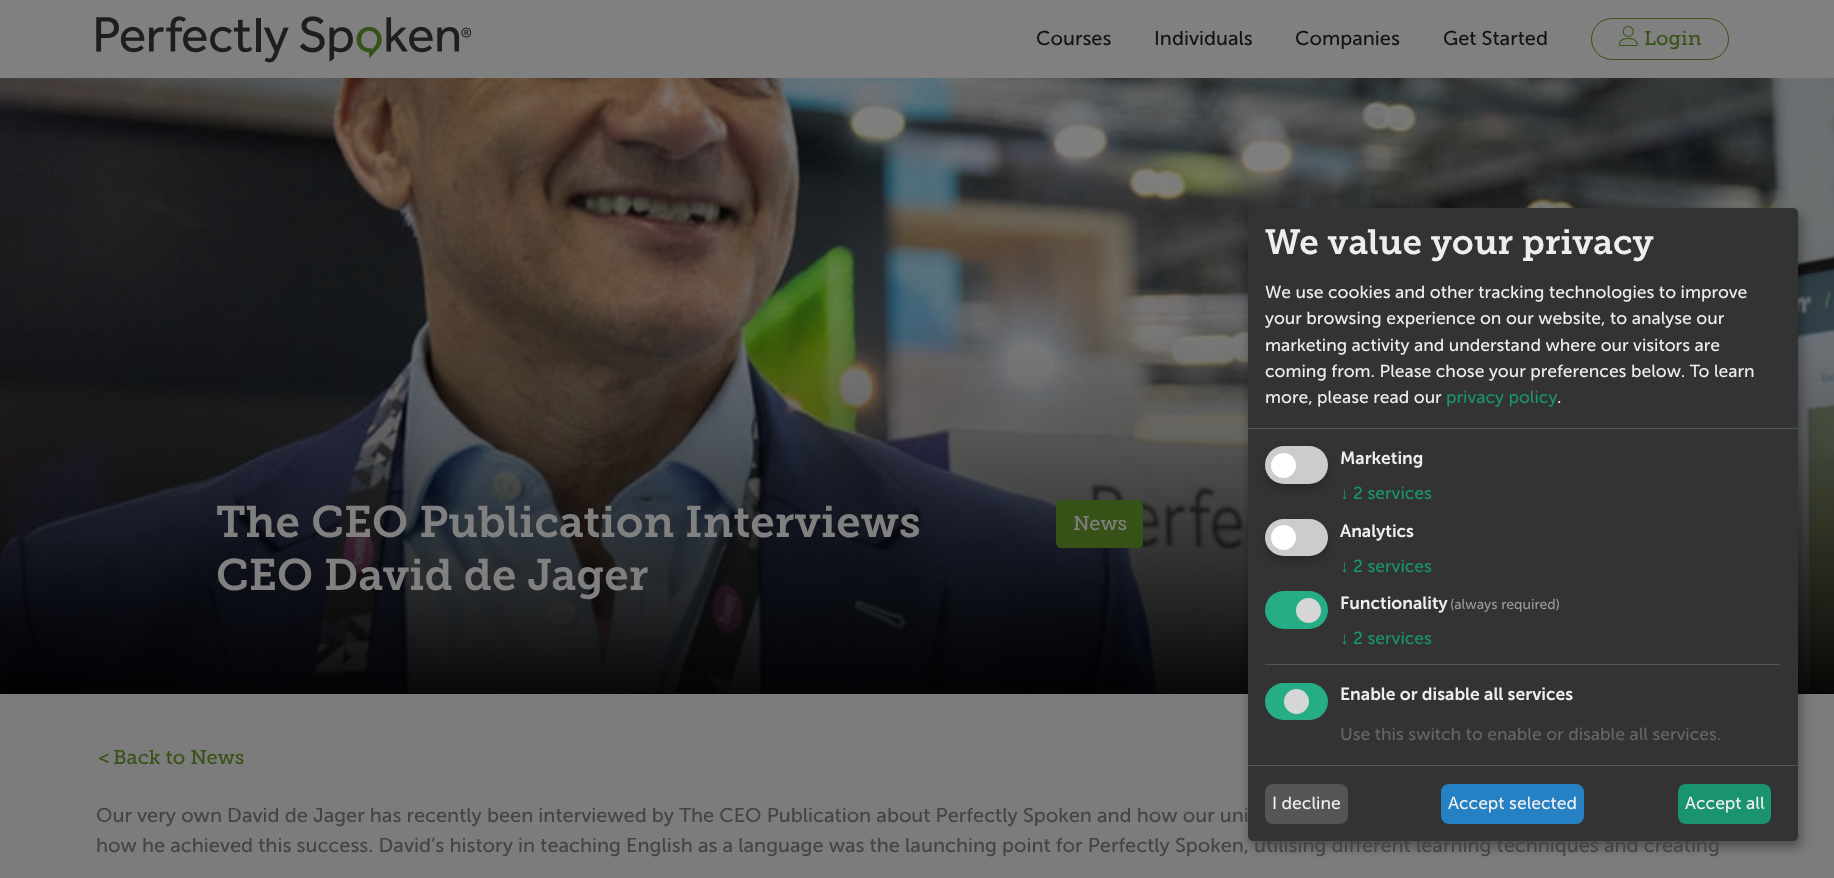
<svg xmlns="http://www.w3.org/2000/svg" width="1834" height="878">
<style>
.a{font:20px Museo Sans;fill:#111315}
.b{font:20px Museo Slab;fill:#375217}
.c{font:44px 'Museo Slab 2';fill:#808080}
.d{font:20px Museo Slab;fill:#808080}
.e{font:20px Museo Sans;fill:#444}
.f{font:17.5px Museo Sans;fill:#666}
.g{font:600 17.5px Museo Sans;fill:#eee}
.h{font:17.5px Museo Sans;fill:#1a936f}
.i{font:17.5px Liberation Sans;fill:#1a936f}
.j{font:14px Museo Sans;fill:#999}
.k{font:17.5px Museo Sans;fill:#eee}
.l{font:35px 'Museo Slab 2';fill:#eee}
</style>
<rect width="100%" height="100%" fill="#7c7c7c"/>
<path fill="#808080" d="M0 0h1834v78H0z"/>
<image href="1.png" x="96" y="16" width="375" height="47"/>
<rect fill="none" stroke="#375217" x="1591.5" y="18.5" width="137" height="41" rx="20.5"/>
<image href="2.png" x="1618" y="26" width="20" height="20"/>
<image href="3.png" x="0" y="78" width="1834" height="616"/>
<rect fill="#00000030" filter="blur(6px)" x="1254" y="214" width="550" height="634" rx="5"/>
<rect fill="#00000033" filter="blur(4px)" x="1248" y="213" width="550" height="633" rx="5"/>
<rect fill="#375217" stroke="#375217" x="1056.5" y="500.5" width="86" height="47" rx="4.5"/>
<text class="a" x="1036" y="45">Courses</text>
<text class="a" x="1154" y="45">Individuals</text>
<text class="a" x="1295" y="45">Companies</text>
<text class="a" x="1443" y="45">Get Started</text>
<text class="b" x="1644" y="45">Login</text>
<text class="c" x="216" y="537">The CEO Publication Interviews</text>
<text class="c" x="216" y="590">CEO David de Jager</text>
<text class="d" x="1073" y="530">News</text>
<text class="b" x="98" y="764">&lt;</text>
<text class="b" x="113" y="764">Back to News</text>
<text class="e" x="96" y="822">Our very own David de Jager has recently been interviewed by The CEO Publication about Perfectly Spoken and how our uni</text>
<text class="e" x="96" y="852">how he achieved this success. David’s history in teaching English as a language was the launching point for Perfectly Spoken, utilising different learning techniques and creating</text>
<rect fill="#333" x="1248" y="208" width="550" height="633" rx="5"/>
<rect fill="#27ad85" x="1265" y="683" width="63" height="37" rx="18.5"/>
<circle fill="#d6d6d6" cx="1296.5" cy="701.5" r="12.5"/>
<text class="f" x="1340" y="740">Use this switch to enable or disable all services.</text>
<text class="g" x="1340" y="700">Enable or disable all services</text>
<path fill="#555" d="M1265 664h515v1H1265z"/>
<rect fill="#27ad85" x="1265" y="591" width="63" height="38" rx="19"/>
<circle fill="#d6d6d6" cx="1308.5" cy="610.5" r="12.5"/>
<text class="h" x="1353" y="644">2 services</text>
<text class="i" x="1340" y="644">↓</text>
<text class="j" x="1450" y="609">(always required)</text>
<text class="g" x="1340" y="609">Functionality</text>
<rect fill="#00000033" filter="blur(4px)" x="1265" y="524" width="63" height="37" rx="18.5"/>
<rect fill="#ccc" x="1265" y="519" width="63" height="37" rx="18.5"/>
<circle fill="#fff" cx="1283.5" cy="537.5" r="12.5"/>
<text class="h" x="1353" y="572">2 services</text>
<text class="i" x="1340" y="572">↓</text>
<text class="g" x="1340" y="537">Analytics</text>
<rect fill="#00000033" filter="blur(4px)" x="1265" y="451" width="63" height="38" rx="19"/>
<rect fill="#ccc" x="1265" y="446" width="63" height="38" rx="19"/>
<circle fill="#fff" cx="1283.5" cy="465.5" r="12.5"/>
<text class="h" x="1353" y="499">2 services</text>
<text class="i" x="1340" y="499">↓</text>
<text class="g" x="1340" y="464">Marketing</text>
<rect fill="#1a936f" x="1678" y="784" width="93" height="40" rx="8"/>
<text class="k" x="1685" y="809">Accept all</text>
<rect fill="#2581c4" x="1441" y="784" width="143" height="40" rx="8"/>
<text class="k" x="1448" y="809">Accept selected</text>
<rect fill="#555" x="1265" y="784" width="83" height="40" rx="8"/>
<text class="k" x="1272" y="809">I decline</text>
<text class="k" x="1557" y="403">.</text>
<text class="h" x="1446" y="403">privacy policy</text>
<text class="k" x="1265" y="403">more, please read our</text>
<text class="k" x="1265" y="377">coming from. Please chose your preferences below. To learn</text>
<text class="k" x="1265" y="351">marketing activity and understand where our visitors are</text>
<text class="k" x="1265" y="324">your browsing experience on our website, to analyse our</text>
<text class="k" x="1265" y="298">We use cookies and other tracking technologies to improve</text>
<text class="l" x="1265" y="254">We value your privacy</text>
<path fill="#555" d="M1248 765h550v1H1248z"/>
<path fill="#555" d="M1248 428h550v1H1248z"/>
</svg>
